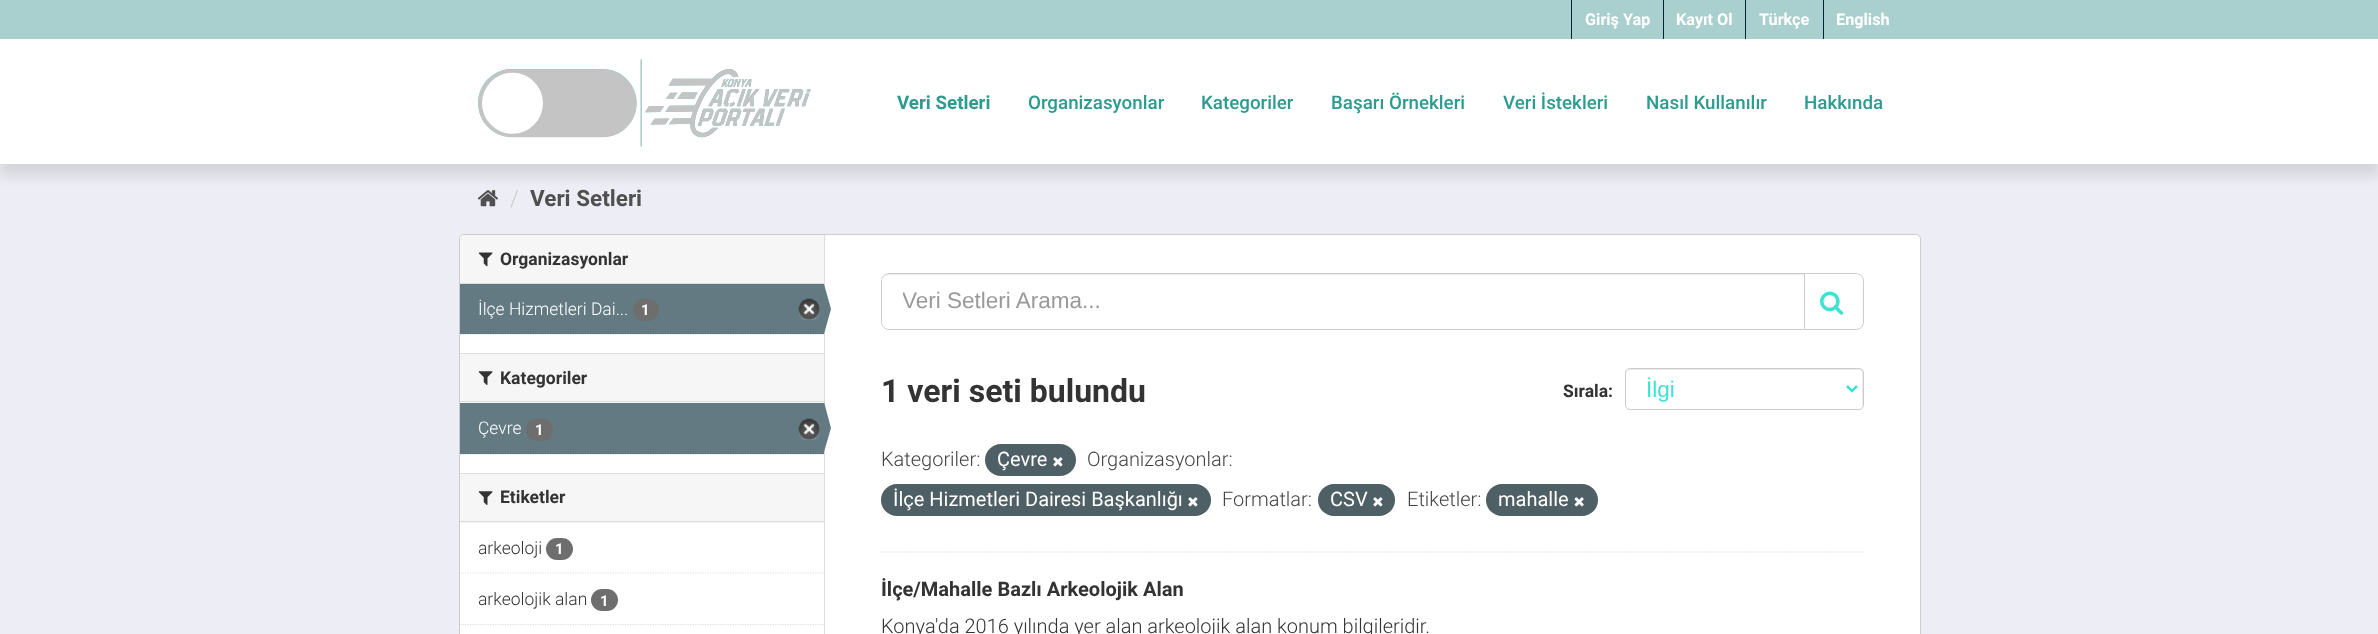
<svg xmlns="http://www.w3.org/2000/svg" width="2378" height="634">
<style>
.a{font:bold 16.25px Roboto;fill:#fff}
.b{font:bold 18.75px Roboto;fill:#2d9b90}
.c{font:500 18.75px Roboto;fill:#2d9b90}
.d{font:300 22.5px Roboto;fill:#ccc}
.e{font:bold 22.5px Roboto;fill:#505050}
.f{font:bold 17.5px Roboto;fill:#333}
.g{font:300 17.5px Roboto;fill:#fff}
.h{font:bold 15px Roboto;fill:#fff}
.i{font:300 17.5px Roboto;fill:#333}
.j{font:22.5px Liberation Sans;fill:#999}
.k{font:bold 32px Roboto;fill:#333}
.l{font:22.5px Liberation Sans;fill:#41e1d1}
.m{font:300 20px Roboto;fill:#444}
.n{font:20px Roboto;fill:#fff}
.o{font:bold 20px Roboto;fill:#333}
.p{font:300 20px Roboto;fill:#333}
</style>
<defs>
<clipPath id="clip1"><path d="M903 288h881v26H903z"/></clipPath>
</defs>
<rect width="100%" height="100%" fill="#edeef5"/>
<path fill="#aacfcf" d="M0 0h2378v39H0z"/>
<path fill="#00232e" d="M1571 0h1v39H1571z"/>
<path fill="#00232e" d="M1663 0h1v39H1663z"/>
<path fill="#00232e" d="M1745 0h1v39H1745z"/>
<path fill="#00232e" d="M1823 0h1v39H1823z"/>
<image href="3.png" x="477" y="190" width="21" height="17"/>
<path fill="#0000001a" filter="blur(6px)" d="M0 51h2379v125H0z"/>
<path fill="#fff" d="M0 39h2378v125H0z"/>
<image href="1.png" x="478" y="59" width="333" height="88"/>
<image href="2.png" x="478" y="59" width="333" height="88"/>
<rect fill="#fff" stroke="#ccc" x="459.5" y="234.5" width="1461" height="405" rx="4.5"/>
<path fill="#f6f6f6" d="M464 235h360v49h-364v-45c0-2 2-4 4-4z"/>
<path fill="#ddd" d="M460 283h364v1H460z"/>
<image href="4.png" x="478" y="252" width="15" height="15"/>
<path fill="none" stroke="#ddd" stroke-width="1.2" stroke-dasharray="1.25 1.25" d="M460 334.5h364"/>
<path fill="#647a82" d="M460 284h364v50H460z"/>
<rect fill="#6e6e6e" x="633" y="299" width="26" height="22" rx="11"/>
<image href="5.png" x="798" y="298" width="22" height="22"/>
<path fill="#ddd" d="M824 235h1v399H824z"/>
<path fill="#647a82" d="M824 334v-50l7 25z"/>
<path fill="#f6f6f6" d="M460 354h364v49H460z"/>
<path fill="#ddd" d="M460 353h364v1H460z"/>
<path fill="#ddd" d="M460 401h364v1H460z"/>
<image href="6.png" x="478" y="371" width="15" height="14"/>
<path fill="none" stroke="#ddd" stroke-width="1.2" stroke-dasharray="1.25 1.25" d="M460 454.5h364"/>
<path fill="#647a82" d="M460 403h364v51H460z"/>
<rect fill="#6e6e6e" x="526" y="419" width="27" height="22" rx="11"/>
<image href="5.png" x="798" y="418" width="22" height="22"/>
<path fill="#647a82" d="M824 452v-50l7 26z"/>
<path fill="#f6f6f6" d="M460 474h364v49H460z"/>
<path fill="#ddd" d="M460 473h364v1H460z"/>
<path fill="#ddd" d="M460 521h364v1H460z"/>
<image href="6.png" x="478" y="491" width="15" height="14"/>
<path fill="none" stroke="#ddd" stroke-width="1.2" stroke-dasharray="1.25 1.25" d="M460 573h364"/>
<rect fill="#6e6e6e" x="546" y="538" width="27" height="22" rx="11"/>
<path fill="none" stroke="#ddd" stroke-width="1.2" stroke-dasharray="1.25 1.25" d="M460 624.5h364"/>
<rect fill="#6e6e6e" x="591" y="589" width="27" height="22" rx="11"/>
<path fill="none" stroke="#ddd" stroke-width="1.2" stroke-dasharray="1.25 1.25" d="M881 552h983"/>
<path fill="#ececec" d="M889 275h915v-1h-915c-2 0-4 1-5 3c1-1 3-2 5-2z"/>
<path fill="none" stroke="#ccc" d="M889 273.5h915.5v56h-915.5c-4 0-7.5-3.5-7.5-7.5v-41c0-4 3.5-7.5 7.5-7.5z"/>
<path fill="#fff" stroke="#ccc" d="M1804.5 273.5h51.5c4 0 7.5 3.5 7.5 7.5v41c0 4-3.5 7.5-7.5 7.5h-51.5z"/>
<image href="7.png" x="1820" y="291" width="24" height="24"/>
<path fill="#ececec" d="M1630 370h229c5 0 3 13 3 15v23c0-1 1-2 1-3v-32c0-2-2-4-4-4h-229c-2 0-4 2-4 4v1c0-2 2-4 4-4z"/>
<rect fill="none" stroke="#ccc" x="1625.5" y="368.5" width="238" height="41" rx="4.5"/>
<path fill="none" stroke="#41e1d1" stroke-width="2.5" d="M1847 386l5 5l5-5"/>
<rect fill="#4e5f65" x="985" y="444" width="91" height="32" rx="16"/>
<image href="8.png" x="1053" y="457" width="10" height="10"/>
<rect fill="#4e5f65" x="881" y="484" width="330" height="32" rx="16"/>
<image href="8.png" x="1188" y="497" width="10" height="10"/>
<rect fill="#4e5f65" x="1318" y="484" width="77" height="32" rx="16"/>
<image href="8.png" x="1373" y="497" width="10" height="10"/>
<rect fill="#4e5f65" x="1486" y="484" width="112" height="32" rx="16"/>
<image href="9.png" x="1574" y="497" width="10" height="10"/>
<text class="a" x="1585" y="25">Giriş Yap</text>
<text class="a" x="1676" y="25">Kayıt Ol</text>
<text class="a" x="1759" y="25">Türkçe</text>
<text class="a" x="1836" y="25">English</text>
<text class="b" x="897" y="109">Veri Setleri</text>
<text class="c" x="1028" y="109">Organizasyonlar</text>
<text class="c" x="1201" y="109">Kategoriler</text>
<text class="c" x="1331" y="109">Başarı Örnekleri</text>
<text class="c" x="1503" y="109">Veri İstekleri</text>
<text class="c" x="1646" y="109">Nasıl Kullanılır</text>
<text class="c" x="1804" y="109">Hakkında</text>
<text class="d" x="510" y="206">/</text>
<text class="e" x="530" y="206">Veri Setleri</text>
<text class="f" x="500" y="265">Organizasyonlar</text>
<text class="g" x="478" y="315">İlçe Hizmetleri Dai...</text>
<text class="h" x="641" y="315">1</text>
<text class="f" x="500" y="384">Kategoriler</text>
<text class="g" x="478" y="434">Çevre</text>
<text class="h" x="535" y="435">1</text>
<text class="f" x="500" y="503">Etiketler</text>
<text class="i" x="478" y="554">arkeoloji</text>
<text class="h" x="555" y="554">1</text>
<text class="i" x="478" y="605">arkeolojik alan</text>
<text class="h" x="600" y="606">1</text>
<g clip-path="url(#clip1)">
<text class="j" x="902" y="308">Veri Setleri Arama...</text>
</g>
<text class="k" x="881" y="402">1 veri seti bulundu</text>
<text class="f" x="1563" y="397">Sırala:</text>
<text class="l" x="1646" y="397">İlgi</text>
<text class="m" x="881" y="466">Kategoriler:</text>
<text class="n" x="997" y="466">Çevre</text>
<text class="m" x="1087" y="466">Organizasyonlar:</text>
<text class="n" x="893" y="506">İlçe Hizmetleri Dairesi Başkanlığı</text>
<text class="m" x="1222" y="506">Formatlar:</text>
<text class="n" x="1330" y="506">CSV</text>
<text class="m" x="1407" y="506">Etiketler:</text>
<text class="n" x="1498" y="506">mahalle</text>
<text class="o" x="881" y="596">İlçe/Mahalle Bazlı Arkeolojik Alan</text>
<text class="p" x="881" y="633">Konya'da 2016 yılında yer alan arkeolojik alan konum bilgileridir.</text>
</svg>
